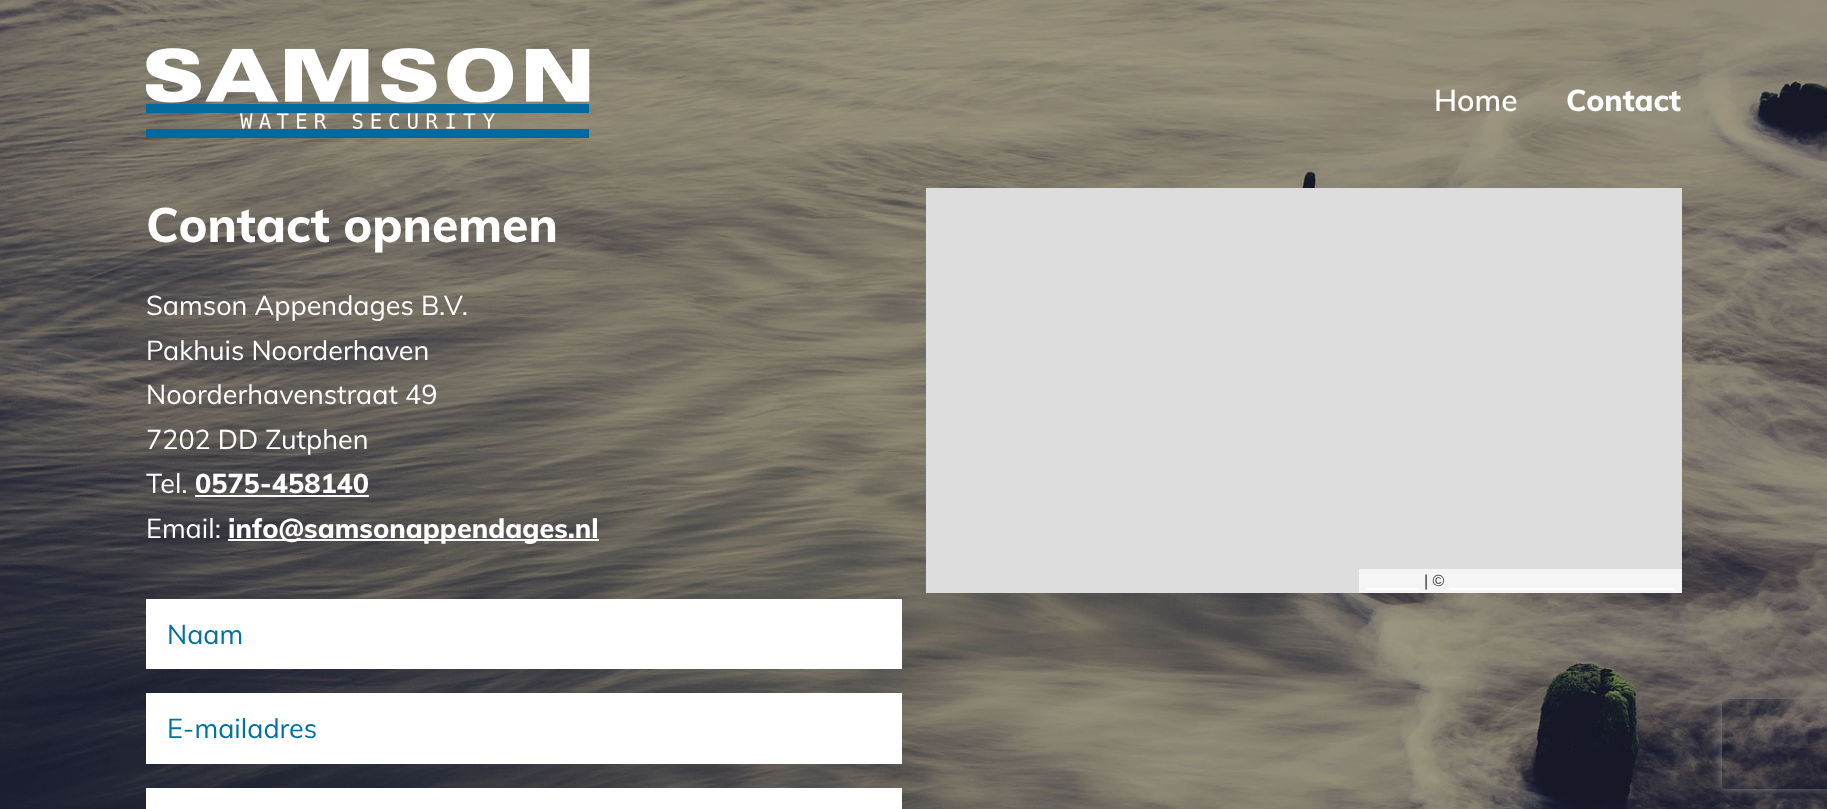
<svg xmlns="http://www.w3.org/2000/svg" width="1827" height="809">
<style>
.a{font:600 30px Muli;fill:#fff}
.b{font:800 30px Muli;fill:#fff}
.c{font:800 48px Muli;fill:#fff}
.d{font:27px Muli;fill:#fff}
.e{font:800 27px Muli;fill:#fff}
.f{font:27px Muli;fill:#0071a0}
.g{font:16px Liberation Sans;fill:#333}
</style>
<defs>
<clipPath id="clip1"><path d="M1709 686h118v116h-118zm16 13h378c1.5 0 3 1.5 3 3v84c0 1.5-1.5 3-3 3h-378c-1.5 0-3-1.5-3-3v-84c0-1.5 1.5-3 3-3z" clip-rule="evenodd"/></clipPath>
</defs>
<rect width="100%" height="100%" fill="#fff"/>
<image href="1.png" x="0" y="0" width="1827" height="809"/>
<image href="2.png" x="146" y="48" width="444" height="90"/>
<path fill="#fff" d="M195 495h174v2H195z"/>
<path fill="#fff" d="M228 539h371v2H228z"/>
<path fill="#fff" d="M146 599h756v70H146z"/>
<path fill="#fff" d="M146 693h756v71H146z"/>
<path fill="#fff" d="M146 788h756v21H146z"/>
<path fill="#ddd" d="M926 188h756v405H926z"/>
<path fill="#f5f5f5" d="M1359 569h323v24H1359z"/>
<path fill="#fff" d="M1367 588h52v2H1367z"/>
<path fill="#fff" d="M1449 588h225v2H1449z"/>
<g clip-path="url(#clip1)">
<rect fill="#808080" filter="blur(4px)" x="1722" y="699" width="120" height="90" rx="3"/>
</g>
<text class="a" x="1434" y="111">Home</text>
<text class="b" x="1566" y="111">Contact</text>
<text class="c" x="146" y="242">Contact opnemen</text>
<text class="d" x="146" y="315">Samson Appendages B.V.</text>
<text class="d" x="146" y="360">Pakhuis Noorderhaven</text>
<text class="d" x="146" y="404">Noorderhavenstraat 49</text>
<text class="d" x="146" y="449">7202 DD Zutphen</text>
<text class="d" x="146" y="493">Tel.</text>
<text class="e" x="195" y="493">0575-458140</text>
<text class="d" x="146" y="538">Email:</text>
<text class="e" x="228" y="538">info@samsonappendages.nl</text>
<text class="f" x="167" y="644">Naam</text>
<text class="f" x="167" y="738">E-mailadres</text>
<text class="g" x="1424" y="586">| ©</text>
</svg>
